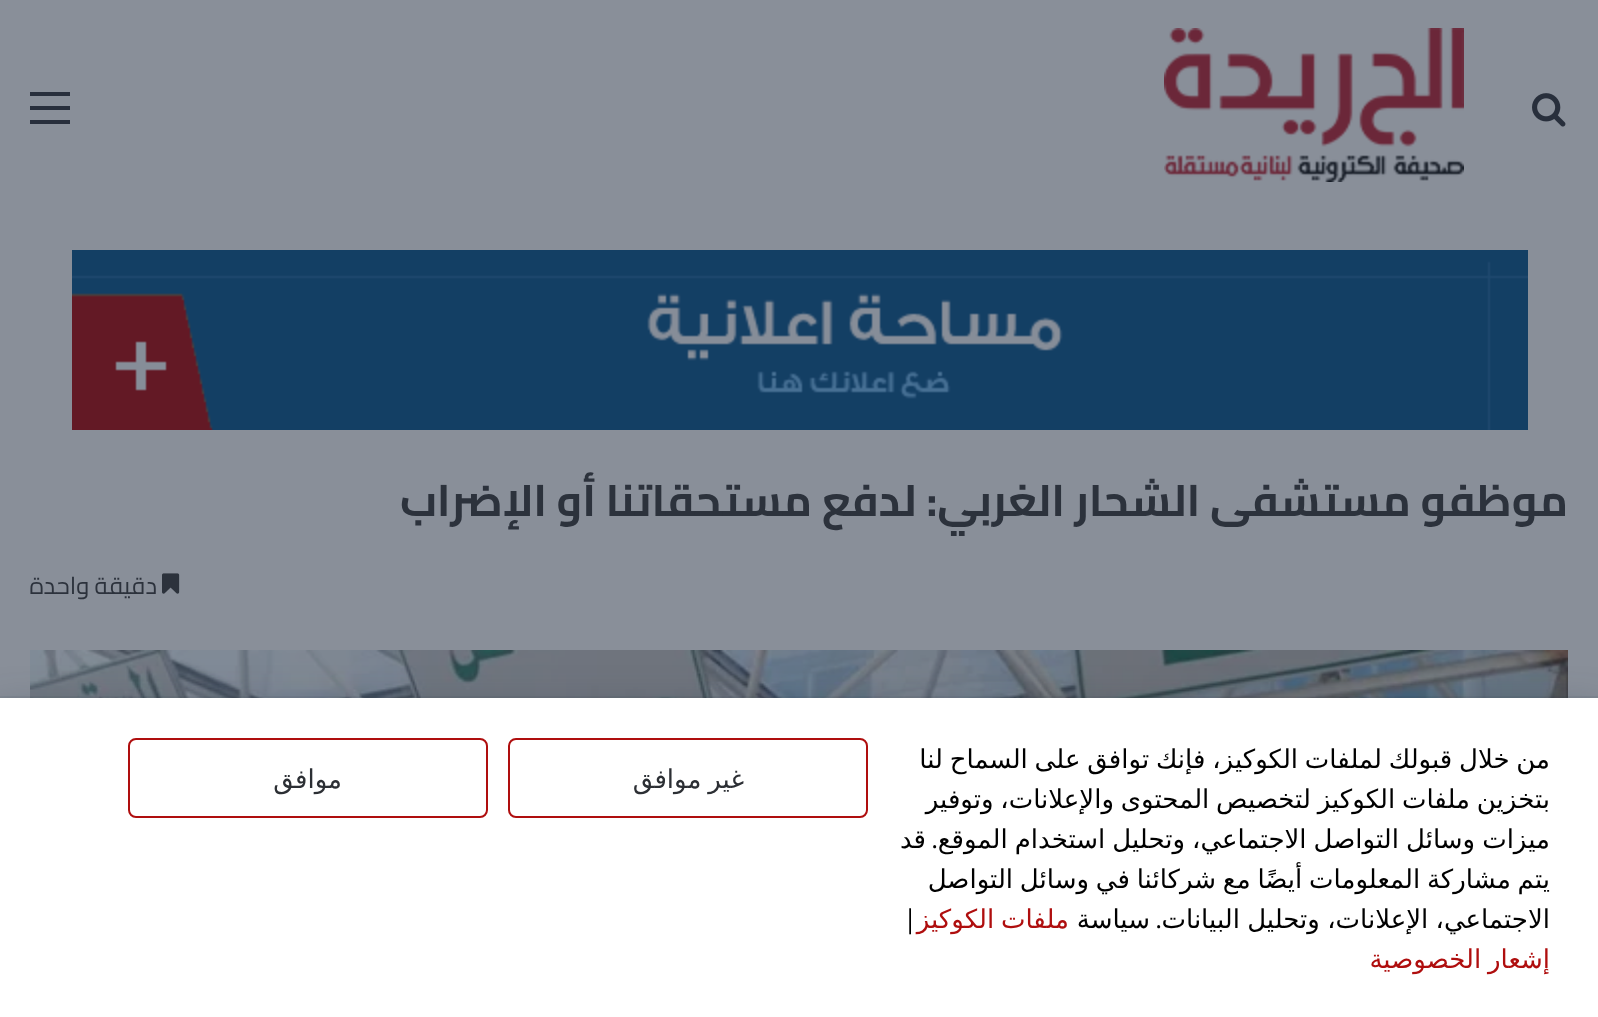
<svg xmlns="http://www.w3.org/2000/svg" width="1598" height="1017">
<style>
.a{font:bold 44px Cairo;direction:rtl;fill:#2c323c}
.b{font:24px Cairo;direction:rtl;fill:#2c323c}
.c{font:26px DejaVu Sans;direction:rtl;fill:#000}
.d{font:26px Open Sans;direction:rtl;fill:#000}
.e{font:26px DejaVu Sans;direction:rtl;fill:#af0e0e}
.f{font:26px Open Sans;fill:#000}
.g{font:26px DejaVu Sans;direction:rtl;fill:#2c2f34}
</style>
<rect width="100%" height="100%" fill="#898f99"/>
<image href="1.png" x="1532" y="93" width="34" height="34"/>
<image href="2.png" x="1164" y="28" width="300" height="154"/>
<path fill="#282f3c" d="M30 106h40v4H30z"/>
<path fill="#282f3c" d="M30 92h40v4H30z"/>
<path fill="#282f3c" d="M30 120h40v4H30z"/>
<image href="3.png" x="72" y="250" width="1456" height="180"/>
<image href="4.png" x="162" y="573" width="18" height="21"/>
<image href="5.png" x="30" y="650" width="1538" height="48"/>
<path fill="#242f424f" filter="blur(20px)" d="M-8 710h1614v296H-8z"/>
<path fill="none" stroke="#242f4214" stroke-width="2" d="M-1 697h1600v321H-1z"/>
<path fill="#fff" d="M0 698h1598v319H0z"/>
<rect fill="none" stroke="#af0e0e" stroke-width="2" x="509" y="739" width="358" height="78" rx="7"/>
<rect fill="none" stroke="#af0e0e" stroke-width="2" x="129" y="739" width="358" height="78" rx="7"/>
<text class="a" x="1568" y="516">موظفو مستشفى الشحار الغربي: لدفع مستحقاتنا أو الإضراب</text>
<text class="b" x="157" y="594">دقيقة واحدة</text>
<text class="c" x="1550" y="768" word-spacing="-1.5">من خلال قبولك لملفات الكوكيز، فإنك توافق على السماح لنا</text>
<text class="c" x="1550" y="808" word-spacing="-1.5">بتخزين ملفات الكوكيز لتخصيص المحتوى والإعلانات، وتوفير</text>
<text class="c" x="1550" y="848" word-spacing="-1.25">ميزات وسائل التواصل الاجتماعي، وتحليل استخدام الموقع</text>
<text class="d" x="938" y="848">.</text>
<text class="c" x="926" y="848">قد</text>
<text class="c" x="1550" y="888" word-spacing="-1.5">يتم مشاركة المعلومات أيضًا مع شركائنا في وسائل التواصل</text>
<text class="c" x="1550" y="928" word-spacing="-1">الاجتماعي، الإعلانات، وتحليل البيانات</text>
<text class="d" x="1162" y="928">.</text>
<text class="c" x="1150" y="928">سياسة</text>
<text class="e" x="1069" y="928" word-spacing="-1.5">ملفات الكوكيز</text>
<text class="f" x="903" y="928">|</text>
<text class="e" x="1550" y="968" word-spacing="-1.5">إشعار الخصوصية</text>
<text class="g" x="744" y="788" word-spacing="-1.5">غير موافق</text>
<text class="g" x="342" y="788">موافق</text>
</svg>
